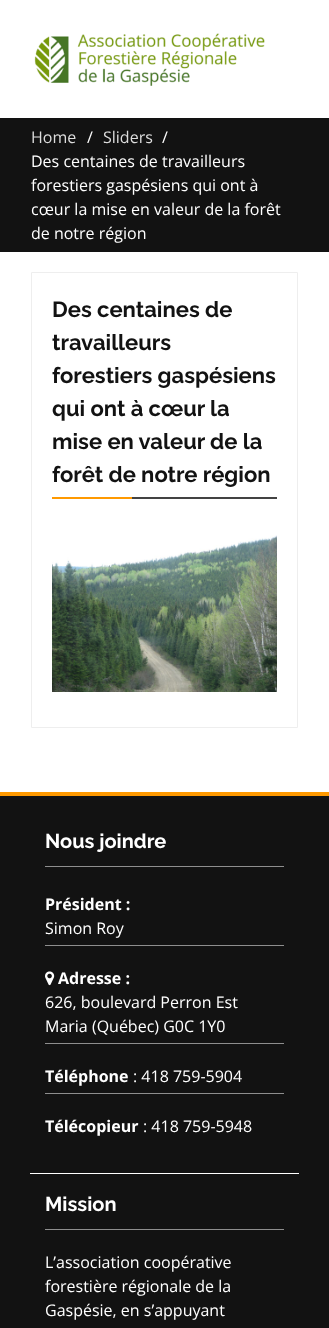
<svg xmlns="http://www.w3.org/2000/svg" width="329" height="1328">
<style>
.a{font:16px Open Sans;fill:#ddd}
.b{font:16px Open Sans;fill:#fff}
.c{font:bold 22px Raleway;fill:#121212}
.d{font:bold 20px Raleway;fill:#fff}
.e{font:bold 16px Open Sans;fill:#fff}
</style>
<rect width="100%" height="100%" fill="#fff"/>
<image href="1.png" x="34" y="33" width="231" height="53"/>
<path fill="#121212" d="M0 118h329v134H0z"/>
<path fill="none" stroke="#eee" d="M31.5 272.5h266v455H31.5z"/>
<path fill="#434343" d="M132 497h145v2H132z"/>
<path fill="#f90" d="M52 497h80v2H52z"/>
<image href="2.png" x="52" y="535" width="225" height="157"/>
<path fill="#121212" d="M0 796h329v532H0z"/>
<path fill="#f90" d="M0 792h329v4H0z"/>
<path fill="#8e8e8e" d="M45 866h239v1H45z"/>
<path fill="#8e8e8e" d="M45 945h239v1H45z"/>
<path fill="#8e8e8e" d="M45 1043h239v1H45z"/>
<image href="3.png" x="45" y="971" width="10" height="15"/>
<path fill="#8e8e8e" d="M45 1093h239v1H45z"/>
<path fill="#fff" d="M30 1173h269v1H30z"/>
<path fill="#8e8e8e" d="M45 1229h239v1H45z"/>
<text class="a" x="31" y="143">Home</text>
<text class="b" x="87" y="143">/</text>
<text class="a" x="103" y="143">Sliders</text>
<text class="b" x="162" y="143">/</text>
<text class="b" x="31" y="167">Des centaines de travailleurs</text>
<text class="b" x="31" y="191">forestiers gaspésiens qui ont à</text>
<text class="b" x="31" y="215">cœur la mise en valeur de la forêt</text>
<text class="b" x="31" y="239">de notre région</text>
<text class="c" x="52" y="317">Des centaines de</text>
<text class="c" x="52" y="350">travailleurs</text>
<text class="c" x="52" y="383">forestiers gaspésiens</text>
<text class="c" x="52" y="416">qui ont à cœur la</text>
<text class="c" x="52" y="449">mise en valeur de la</text>
<text class="c" x="52" y="482">forêt de notre région</text>
<text class="d" x="45" y="848">Nous joindre</text>
<text class="e" x="45" y="910">Président :</text>
<text class="b" x="45" y="934">Simon Roy</text>
<text class="e" x="58" y="984">Adresse :</text>
<text class="b" x="45" y="1008">626, boulevard Perron Est</text>
<text class="b" x="45" y="1032">Maria (Québec) G0C 1Y0</text>
<text class="e" x="45" y="1082">Téléphone</text>
<text class="b" x="133" y="1082">: 418 759-5904</text>
<text class="e" x="45" y="1132">Télécopieur</text>
<text class="b" x="143" y="1132">: 418 759-5948</text>
<text class="d" x="45" y="1211">Mission</text>
<text class="b" x="45" y="1268">L’association coopérative</text>
<text class="b" x="45" y="1292">forestière régionale de la</text>
<text class="b" x="45" y="1316">Gaspésie, en s’appuyant</text>
</svg>
